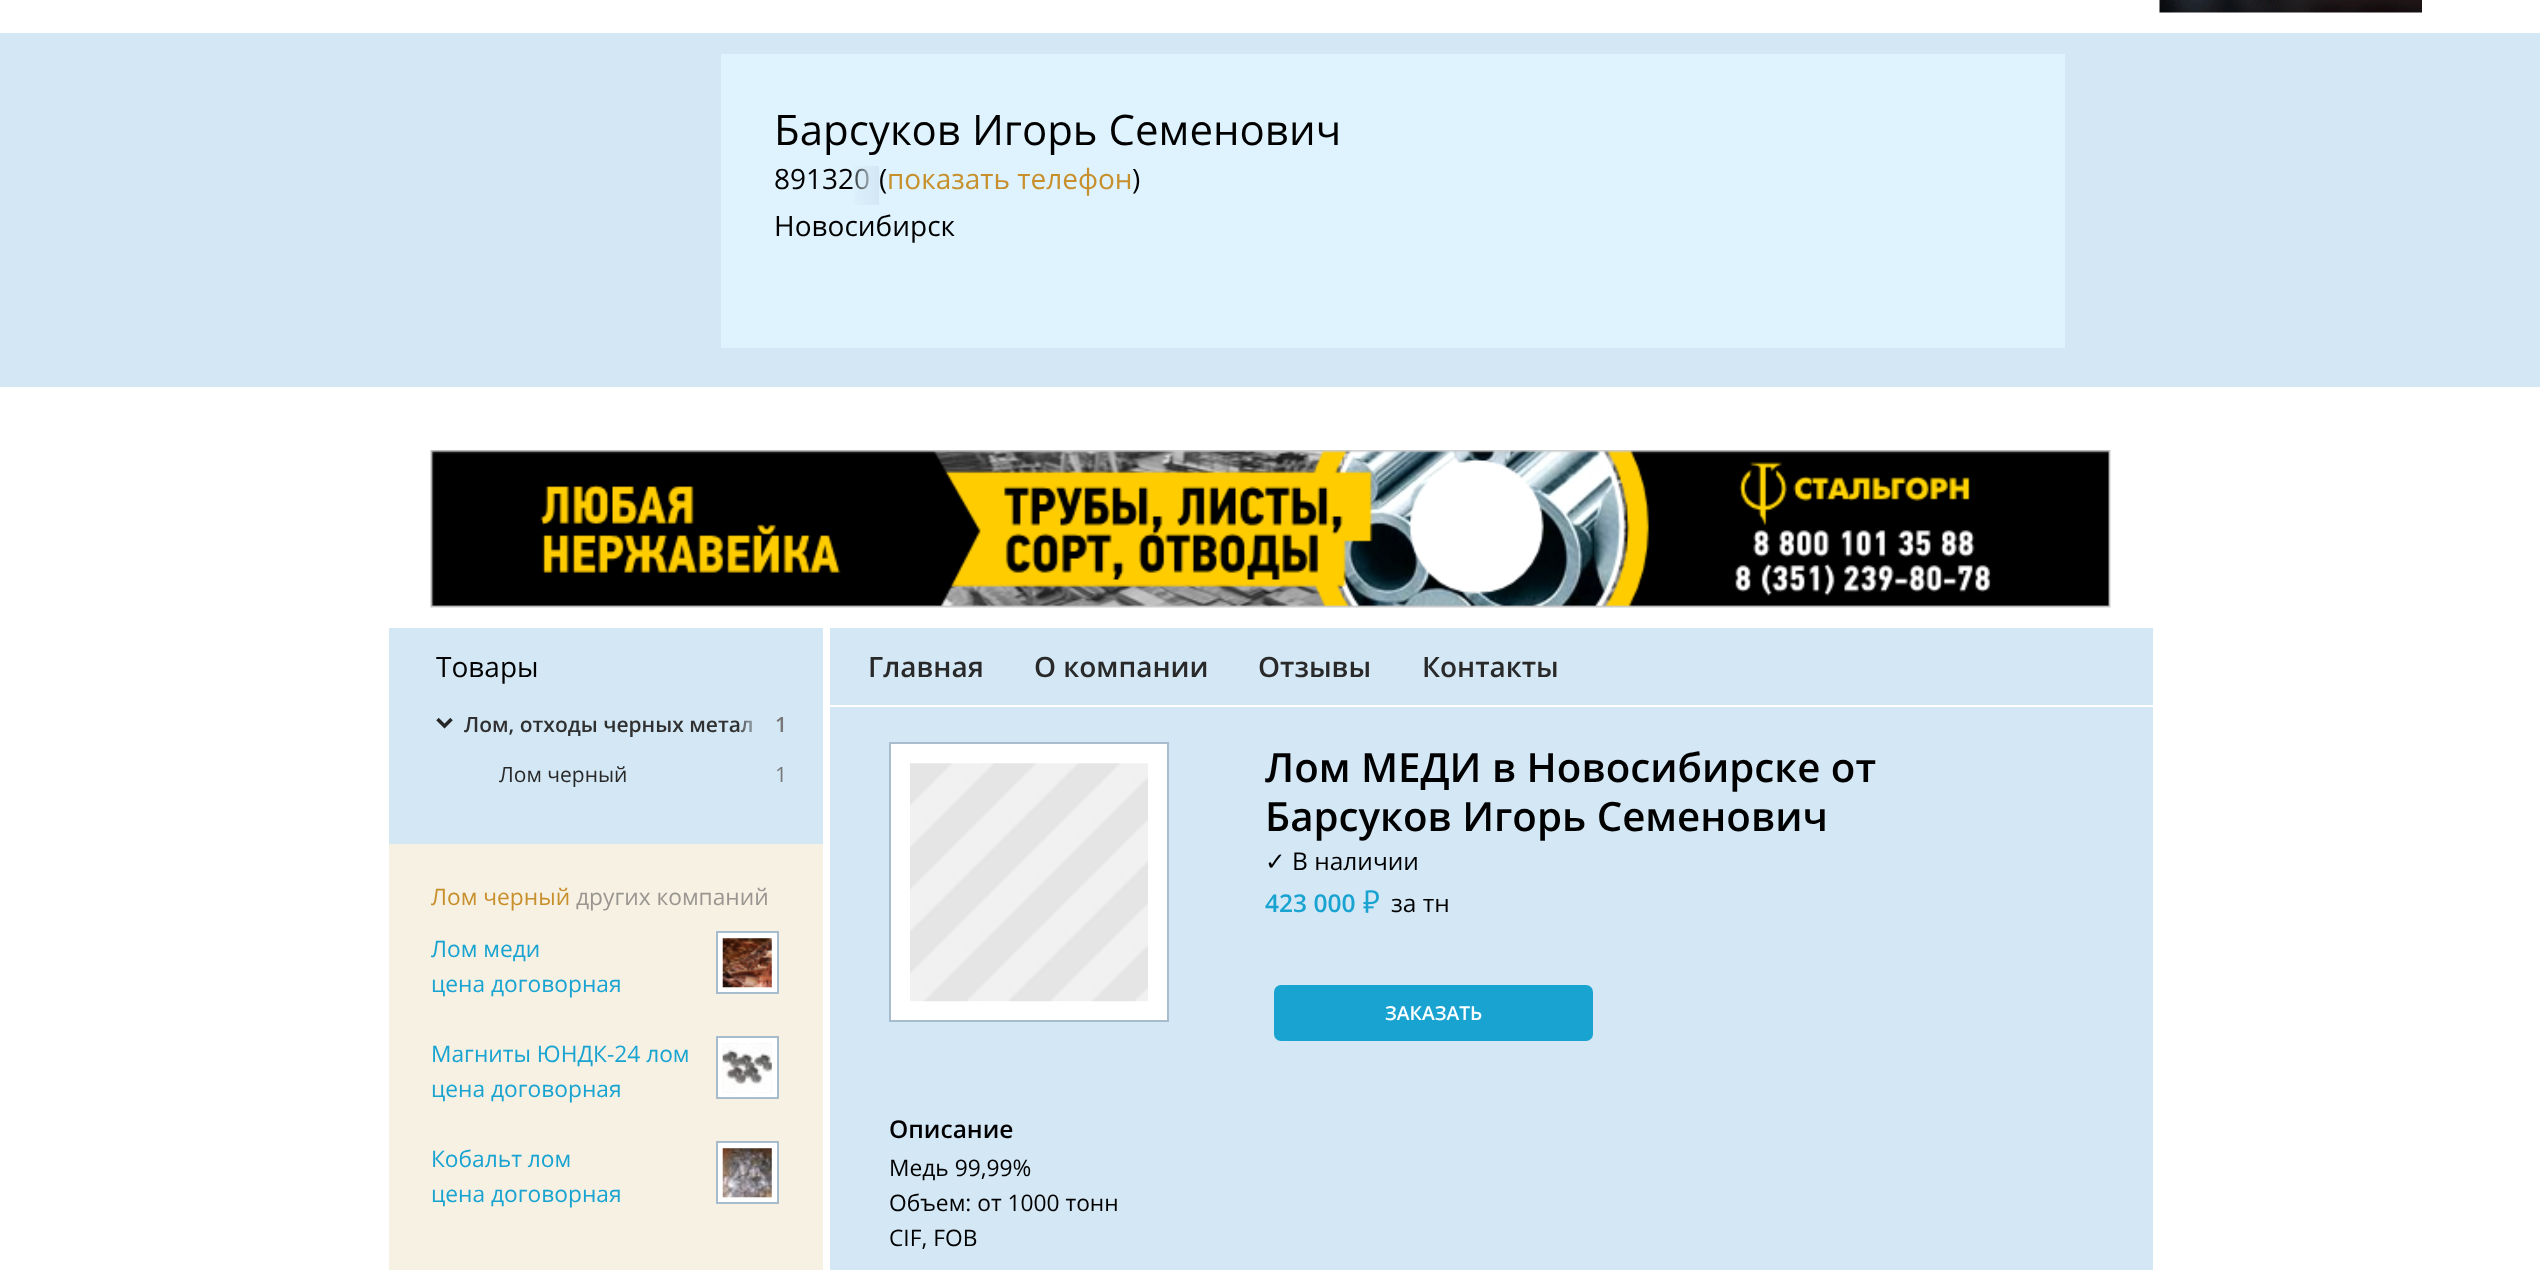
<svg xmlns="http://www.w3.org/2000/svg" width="2540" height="1270">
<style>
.a{font:42px Open Sans;fill:#000}
.b{font:28px Open Sans;fill:#000}
.c{font:28px Open Sans;fill:#c7902c}
.d{font:600 21px Open Sans;fill:#303030}
.e{font:600 21px Open Sans;fill:#777}
.f{font:21px Open Sans;fill:#292929}
.g{font:21px Open Sans;fill:#777}
.h{font:22.75px Open Sans;fill:#c7902c}
.i{font:22.75px Open Sans;fill:#999691}
.j{font:22.75px Open Sans;fill:#18a3d1}
.k{font:600 28px Open Sans;fill:#292929}
.l{font:600 40.25px Open Sans;fill:#000}
.m{font:24.5px DejaVu Sans;fill:#000}
.n{font:24.5px Open Sans;fill:#000}
.o{font:600 24.5px Open Sans;fill:#18a3d1}
.p{font:600 19.25px Open Sans;fill:#fff}
.q{font:600 24.5px Open Sans;fill:#000}
.r{font:22.75px Open Sans;fill:#000}
</style>
<defs>
<linearGradient id="g1" gradientUnits="userSpaceOnUse" x1="852" y1="186" x2="879" y2="186"><stop offset="0" stop-color="#d5e8f5" stop-opacity="0.2"/><stop offset="1" stop-color="#d3e7f5"/></linearGradient>
<linearGradient id="g2" gradientUnits="userSpaceOnUse" x1="740" y1="725" x2="767" y2="725"><stop offset="0" stop-color="#d5e8f5" stop-opacity="0.2"/><stop offset="1" stop-color="#d3e7f5"/></linearGradient>
</defs>
<rect width="100%" height="100%" fill="#fff"/>
<image href="1.png" x="2159" y="0" width="263" height="13"/>
<path fill="#d3e7f5" d="M0 33h2540v354H0z"/>
<path fill="#def3fe" d="M721 54h1344v294H721z"/>
<image href="2.png" x="430" y="450" width="1681" height="158"/>
<path fill="#f7f1e4" d="M389 844h434v426H389z"/>
<path fill="#d3e7f5" d="M389 628h434v216H389z"/>
<image href="3.png" x="436" y="717" width="17" height="12"/>
<path fill="#fff" stroke="#a7bccc" stroke-width="2" d="M717 932h61v61H717z"/>
<image href="4.png" x="722" y="938" width="50" height="50"/>
<image href="5.png" x="722" y="938" width="50" height="50"/>
<path fill="#fff" stroke="#a7bccc" stroke-width="2" d="M717 1037h61v61H717z"/>
<image href="4.png" x="722" y="1043" width="50" height="50"/>
<image href="6.png" x="722" y="1043" width="50" height="49"/>
<path fill="#fff" stroke="#a7bccc" stroke-width="2" d="M717 1142h61v61H717z"/>
<image href="4.png" x="722" y="1148" width="50" height="50"/>
<image href="7.png" x="722" y="1148" width="50" height="50"/>
<path fill="#d3e7f5" d="M830 628h1323v642H830z"/>
<path fill="#fff" d="M830 705h1323v2H830z"/>
<path fill="#fff" stroke="#a7bccc" stroke-width="2" d="M890 743h278v278H890z"/>
<image href="8.png" x="910" y="763" width="238" height="239"/>
<image href="9.png" x="1363" y="890" width="16" height="23"/>
<rect fill="#18a3d1" x="1274" y="985" width="319" height="56" rx="7"/>
<text class="a" x="774" y="145">Барсуков Игорь Семенович</text>
<text class="b" x="774" y="189">891320</text>
<path fill="url(#g1)" d="M854 166h25v39H854z"/>
<text class="b" x="879" y="189">(</text>
<text class="c" x="887" y="189">показать телефон</text>
<text class="b" x="1132" y="189">)</text>
<text class="b" x="774" y="236">Новосибирск</text>
<text class="b" x="436" y="677">Товары</text>
<text class="d" x="464" y="732">Лом, отходы черных метал</text>
<path fill="url(#g2)" d="M740 720h12v13H740z"/>
<text class="e" x="775" y="732">1</text>
<text class="f" x="499" y="782">Лом черный</text>
<text class="g" x="775" y="782">1</text>
<text class="h" x="431" y="905">Лом черный</text>
<text class="i" x="576" y="905">других компаний</text>
<text class="j" x="431" y="957">Лом меди</text>
<text class="j" x="431" y="992">цена договорная</text>
<text class="j" x="431" y="1062">Магниты ЮНДК-24 лом</text>
<text class="j" x="431" y="1097">цена договорная</text>
<text class="j" x="431" y="1167">Кобальт лом</text>
<text class="j" x="431" y="1202">цена договорная</text>
<text class="k" x="868" y="677">Главная</text>
<text class="k" x="1034" y="677">О компании</text>
<text class="k" x="1258" y="677">Отзывы</text>
<text class="k" x="1422" y="677">Контакты</text>
<text class="l" x="1265" y="782">Лом МЕДИ в Новосибирске от</text>
<text class="l" x="1265" y="831">Барсуков Игорь Семенович</text>
<text class="m" x="1265" y="870">✓</text>
<text class="n" x="1292" y="870">В наличии</text>
<text class="o" x="1265" y="912">423 000</text>
<text class="n" x="1391" y="912">за тн</text>
<text class="p" x="1385" y="1020">ЗАКАЗАТЬ</text>
<text class="q" x="889" y="1138">Описание</text>
<text class="r" x="889" y="1176">Медь 99,99%</text>
<text class="r" x="889" y="1211">Объем: от 1000 тонн</text>
<text class="r" x="889" y="1246">CIF, FOB</text>
</svg>
